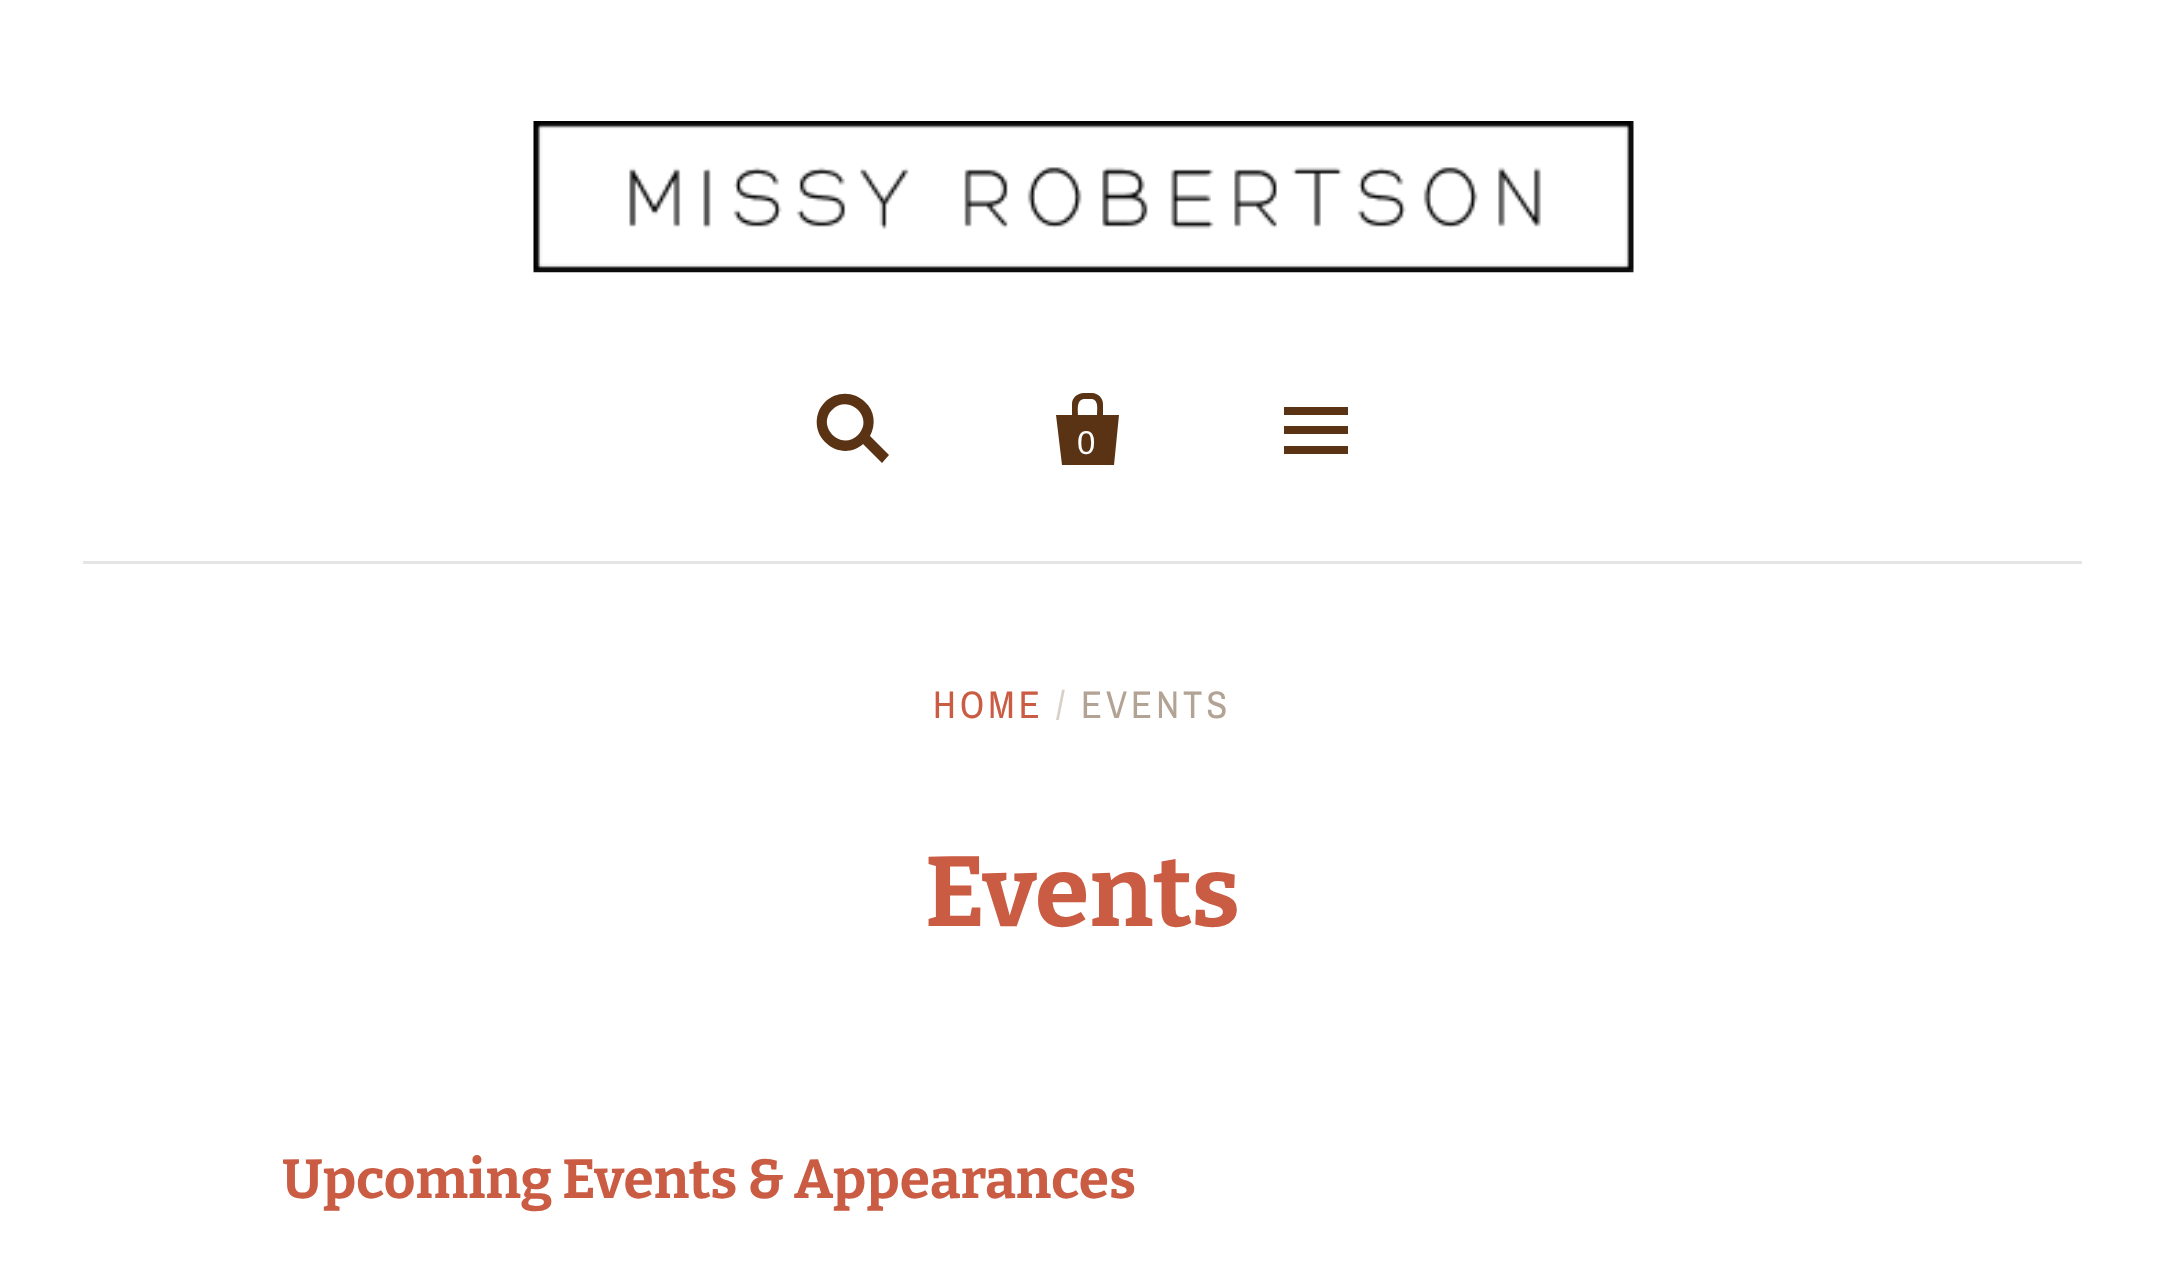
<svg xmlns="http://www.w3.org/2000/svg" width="2164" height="1272">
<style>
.a{font:33px Liberation Sans;fill:#fff}
.b{font:38.5px Archivo Narrow;letter-spacing:4px;fill:#ca5c43}
.c{font:38.5px Archivo Narrow;letter-spacing:4px;fill:#d9d1c9}
.d{font:38.5px Archivo Narrow;letter-spacing:4px;fill:#b3a394}
.e{font:bold 99px Bitter;fill:#ca5c43}
.f{font:bold 55px Bitter;fill:#ca5c43}
</style>
<rect width="100%" height="100%" fill="#fff"/>
<path fill="#e5e5e5" d="M83 561h1999v3H83z"/>
<image href="1.png" x="533" y="121" width="1101" height="152"/>
<path fill="#5a3214" d="M870 436c6-11 5-25-5-34c-11-11-29-11-40 0c-11 11-11 29 0 40c11 11 27 12 38 2l19 19l7-8zm-12-1c-17 17-42-9-26-25c17-17 43 8 26 25z"/>
<path fill="#5a3214" d="M1103 415h16l-5 50h-52l-6-50h16v-11c0-6 5-11 12-11h8c6 0 11 5 11 11zm-18-16c-9 0-7 11-7 16h19c0-5 2-15-5-16z"/>
<path fill="#5a3214" d="M1284 426h64v8H1284z"/>
<path fill="#5a3214" d="M1284 407h64v8H1284z"/>
<path fill="#5a3214" d="M1284 446h64v8H1284z"/>
<text class="a" x="1077" y="454">0</text>
<text class="b" x="933" y="718">HOME</text>
<text class="c" x="1056" y="718">/</text>
<text class="d" x="1081" y="718">EVENTS</text>
<text class="e" x="925" y="926">Events</text>
<text class="f" x="282" y="1198">Upcoming Events &amp; Appearances</text>
</svg>
